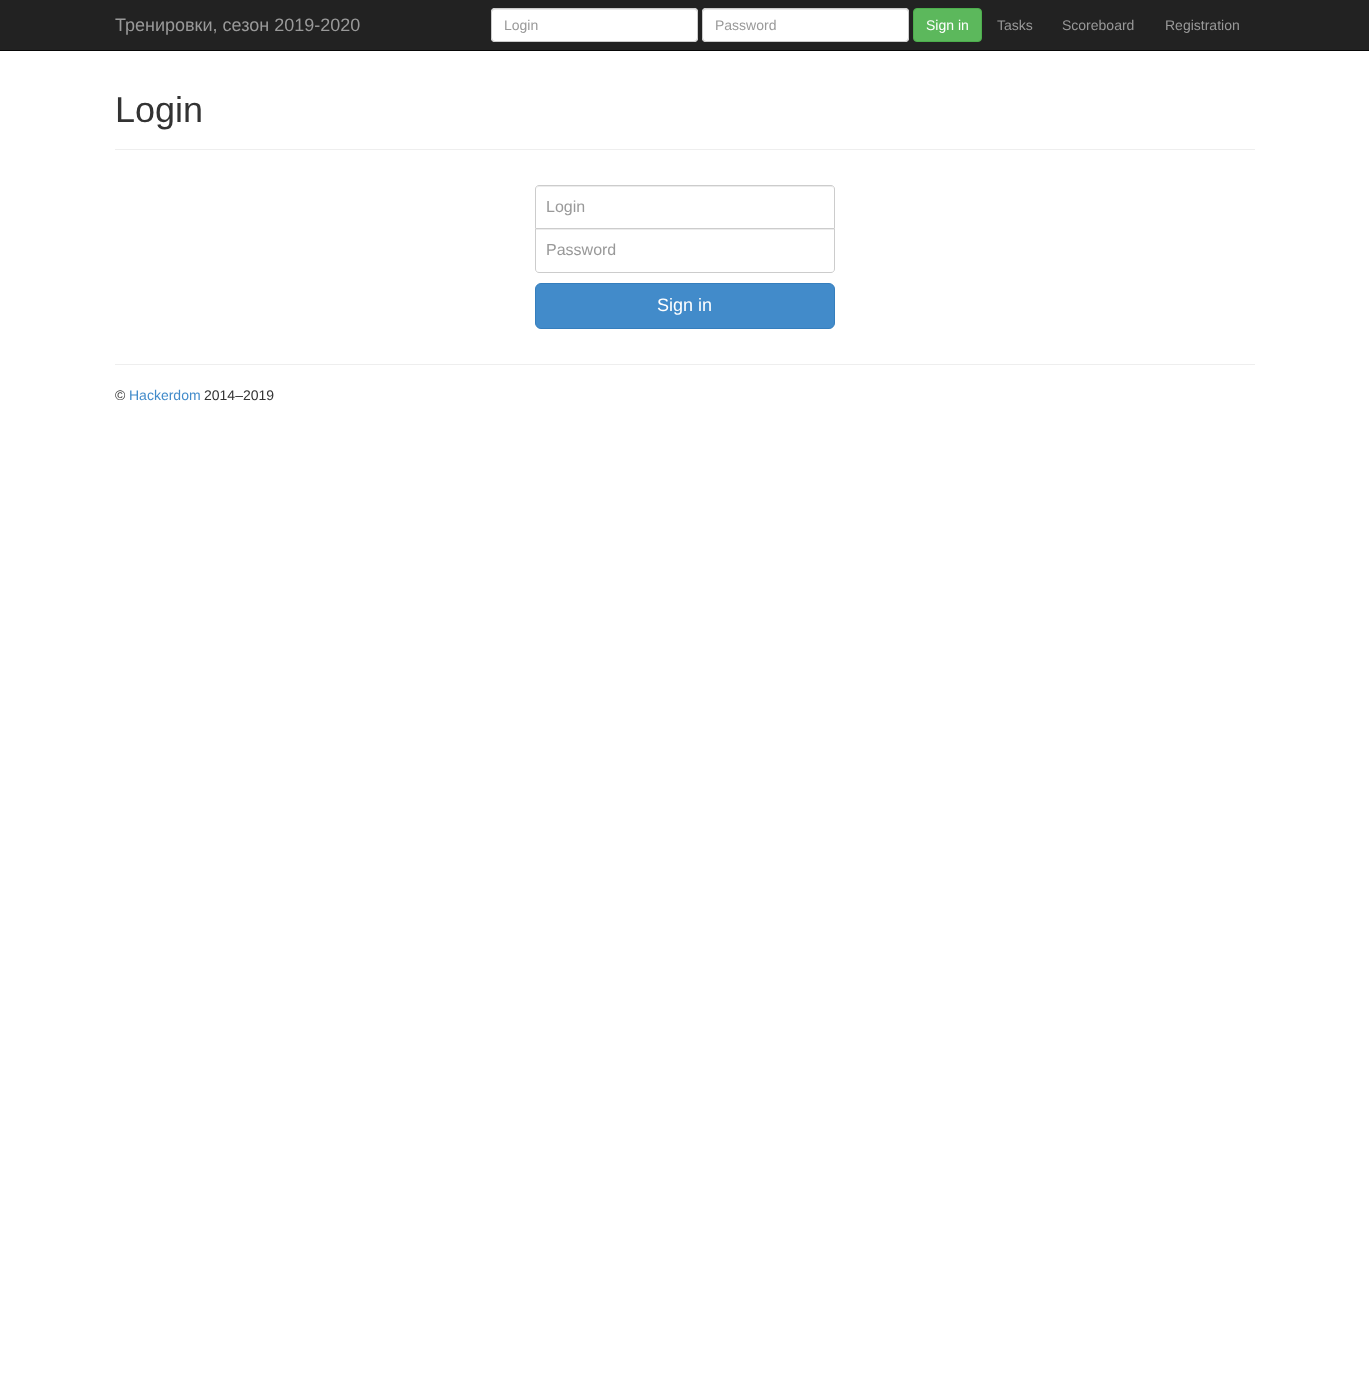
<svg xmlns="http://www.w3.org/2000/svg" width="1369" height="1383">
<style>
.a{font:18px Liberation Sans;fill:#999}
.b{font:14px Liberation Sans;fill:#999}
.c{font:14px Liberation Sans;fill:#fff}
.d{font:36px Liberation Sans;fill:#333}
.e{font:16px Liberation Sans;fill:#999}
.f{font:18px Liberation Sans;fill:#fff}
.g{font:14px Liberation Sans;fill:#333}
.h{font:14px Liberation Sans;fill:#428bca}
</style>
<rect width="100%" height="100%" fill="#fff"/>
<path fill="#222" d="M0 0h1369v50H0z"/>
<path fill="#080808" d="M0 50h1369v1H0z"/>
<rect fill="#fff" x="491" y="8" width="207" height="34" rx="4"/>
<path fill="#ececec" d="M495 10h199c2 0 3 1 3 3c0-2-1-4-3-4h-199c-2 0-3 2-3 4c0-2 1-3 3-3z"/>
<rect fill="none" stroke="#ccc" x="491.5" y="8.5" width="206" height="33" rx="3.5"/>
<rect fill="#fff" x="702" y="8" width="207" height="34" rx="4"/>
<path fill="#ececec" d="M706 10h199c2 0 3 1 3 3c0-2-1-4-3-4h-199c-2 0-3 2-3 4c0-2 1-3 3-3z"/>
<rect fill="none" stroke="#ccc" x="702.5" y="8.5" width="206" height="33" rx="3.5"/>
<rect fill="#5cb85c" stroke="#4cae4c" x="913.5" y="8.5" width="68" height="33" rx="3.5"/>
<path fill="#eee" d="M115 149h1140v1H115z"/>
<path fill="#ececec" d="M539 187h292c2 0 3 1 3 3l-1-3l-1-1h-293c-2 0-3 2-3 4c0-2 1-3 3-3z"/>
<path fill="none" stroke="#ccc" d="M539 185.5h292c2 0 3.5 1.5 3.5 3.5v39.5h-299v-39.5c0-2 1.5-3.5 3.5-3.5z"/>
<path fill="#fff" d="M535 228h300v41c0 2-2 4-4 4h-292c-2 0-4-2-4-4z"/>
<path fill="#ececec" d="M536 229h298v1H536z"/>
<path fill="none" stroke="#ccc" d="M535.5 228.5h299v40.5c0 2-1.5 3.5-3.5 3.5h-292c-2 0-3.5-1.5-3.5-3.5z"/>
<rect fill="#428bca" stroke="#357ebd" x="535.5" y="283.5" width="299" height="45" rx="5.5"/>
<path fill="#eee" d="M115 364h1140v1H115z"/>
<text class="a" x="115" y="31">Тренировки, сезон 2019-2020</text>
<text class="b" x="504" y="30">Login</text>
<text class="b" x="715" y="30">Password</text>
<text class="c" x="926" y="30">Sign in</text>
<text class="b" x="997" y="30">Tasks</text>
<text class="b" x="1062" y="30">Scoreboard</text>
<text class="b" x="1165" y="30">Registration</text>
<text class="d" x="115" y="122">Login</text>
<text class="e" x="546" y="212">Login</text>
<text class="e" x="546" y="255">Password</text>
<text class="f" x="657" y="311">Sign in</text>
<text class="g" x="115" y="400">©</text>
<text class="h" x="129" y="400">Hackerdom</text>
<text class="g" x="204" y="400">2014–2019</text>
</svg>
